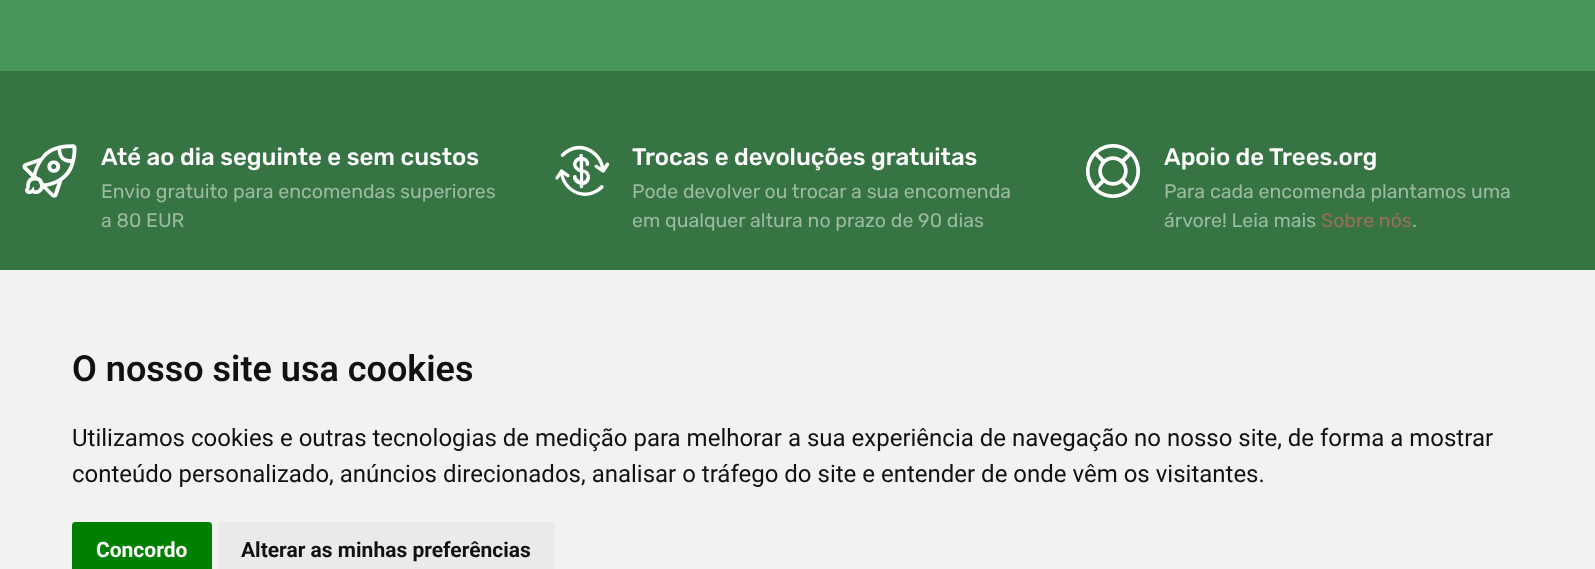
<svg xmlns="http://www.w3.org/2000/svg" width="1595" height="569">
<style>
.a{font:500 24px Rubik;fill:#fff}
.b{font:19.5px Rubik;fill:#9bbaa2}
.c{font:19.5px Rubik;fill:#9a6f57}
.d{font:600 36px Roboto;fill:#111}
.e{font:24px Roboto;fill:#111}
.f{font:bold 21px Roboto;fill:#fff}
.g{font:bold 21px Roboto;fill:#111}
</style>
<rect width="100%" height="100%" fill="#469759"/>
<path fill="#367444" d="M0 71h1595v199H0z"/>
<image href="1.png" x="22" y="144" width="55" height="54"/>
<image href="2.png" x="555" y="145" width="55" height="51"/>
<image href="3.png" x="1086" y="144" width="54" height="54"/>
<path fill="#f2f2f2" d="M0 270h1595v299H0z"/>
<path fill="#008000" d="M75 522h134c1.5 0 3 1.5 3 3v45h-140v-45c0-1.5 1.5-3 3-3z"/>
<path fill="#eaeaea" d="M221 522h331c1.5 0 3 1.5 3 3v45h-337v-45c0-1.5 1.5-3 3-3z"/>
<text class="a" x="101" y="165">Até ao dia seguinte e sem custos</text>
<text class="b" x="101" y="198">Envio gratuito para encomendas superiores</text>
<text class="b" x="101" y="227">a 80 EUR</text>
<text class="a" x="632" y="165">Trocas e devoluções gratuitas</text>
<text class="b" x="632" y="198">Pode devolver ou trocar a sua encomenda</text>
<text class="b" x="632" y="227">em qualquer altura no prazo de 90 dias</text>
<text class="a" x="1164" y="165">Apoio de Trees.org</text>
<text class="b" x="1164" y="198">Para cada encomenda plantamos uma</text>
<text class="b" x="1164" y="227">árvore! Leia mais</text>
<text class="c" x="1321" y="227">Sobre nós</text>
<text class="b" x="1412" y="227">.</text>
<text class="d" x="72" y="381">O nosso site usa cookies</text>
<text class="e" x="72" y="446">Utilizamos cookies e outras tecnologias de medição para melhorar a sua experiência de navegação no nosso site, de forma a mostrar</text>
<text class="e" x="72" y="482">conteúdo personalizado, anúncios direcionados, analisar o tráfego do site e entender de onde vêm os visitantes.</text>
<text class="f" x="96" y="557">Concordo</text>
<text class="g" x="241" y="557">Alterar as minhas preferências</text>
</svg>
